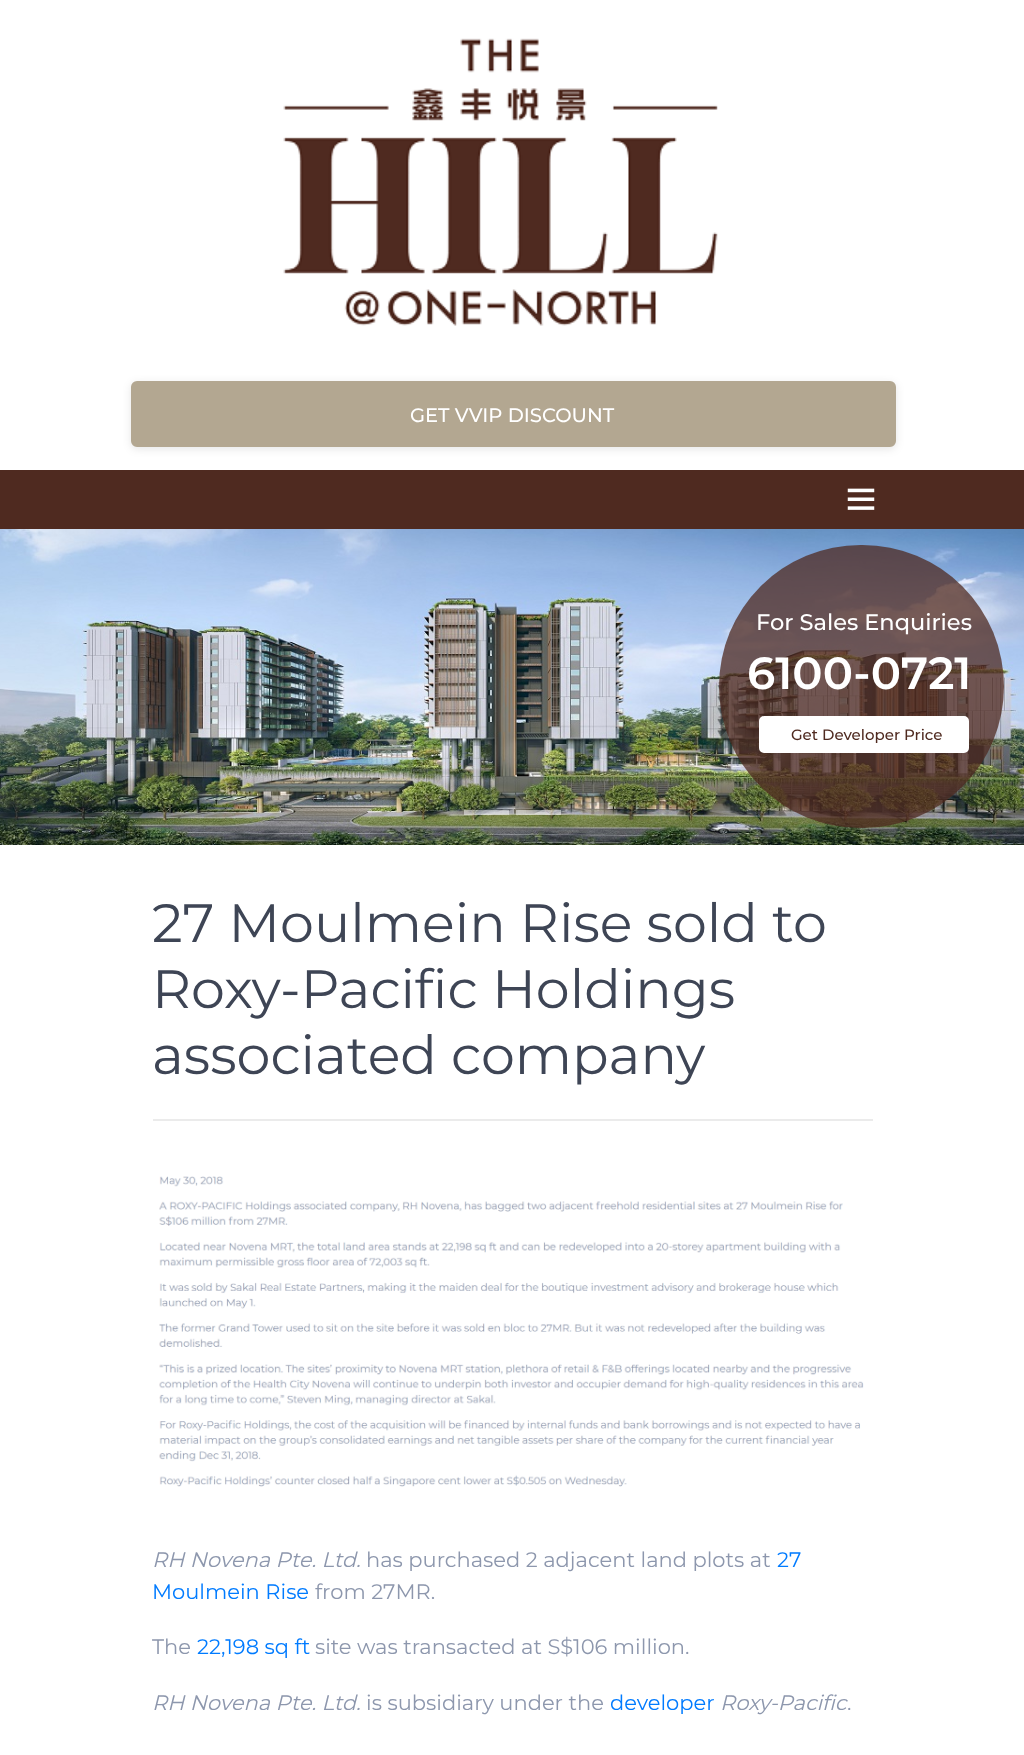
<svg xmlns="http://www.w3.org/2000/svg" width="1024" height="1755">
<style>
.a{font:500 19.5px Montserrat;fill:#fff}
.b{font:500 22.5px Montserrat;fill:#fff}
.c{font:600 45px Montserrat;fill:#fff}
.d{font:500 15px Montserrat;fill:#4f2a20}
.e{font:54px Montserrat;fill:#3e4555}
.f{font:italic 21px Montserrat;fill:#8d97ad}
.g{font:21px Montserrat;fill:#8d97ad}
.h{font:21px Montserrat;fill:#007bff}
</style>
<rect width="100%" height="100%" fill="#fff"/>
<image href="1.png" x="283" y="38" width="435" height="288"/>
<rect fill="#0000001a" filter="blur(4.5px)" x="131" y="383" width="765" height="66" rx="6"/>
<rect fill="#b3a791" stroke="#b3a791" stroke-width="2" x="132" y="382" width="763" height="64" rx="5"/>
<path fill="#4f2a20" d="M0 470h1024v59H0z"/>
<image href="2.png" x="847" y="488" width="28" height="22"/>
<image href="3.png" x="0" y="529" width="1024" height="316"/>
<rect fill="#4f2a20bf" x="719" y="545" width="285" height="283" rx="141.5"/>
<rect fill="#fff" stroke="#fff" stroke-width="2" x="760" y="717" width="208" height="35" rx="4"/>
<path fill="#ffffff80" d="M464 810h45v5H464z"/>
<path fill="#ffffff80" d="M516 810h45v5H516z"/>
<path fill="#ebebeb" d="M153 1119h720v2H153z"/>
<image href="4.png" x="159" y="1176" width="705" height="311"/>
<text class="a" x="410" y="422">GET VVIP DISCOUNT</text>
<text class="b" x="756" y="630">For Sales Enquiries</text>
<text class="c" x="747" y="689">6100-0721</text>
<text class="d" x="791" y="740">Get Developer Price</text>
<text class="e" x="152" y="942">27 Moulmein Rise sold to</text>
<text class="e" x="152" y="1008">Roxy-Pacific Holdings</text>
<text class="e" x="152" y="1074">associated company</text>
<text class="f" x="152" y="1567">RH Novena Pte. Ltd.</text>
<text class="g" x="366" y="1567">has purchased 2 adjacent land plots at</text>
<text class="h" x="777" y="1567">27</text>
<text class="h" x="152" y="1599">Moulmein Rise</text>
<text class="g" x="315" y="1599">from 27MR.</text>
<text class="g" x="152" y="1654">The</text>
<text class="h" x="197" y="1654">22,198 sq ft</text>
<text class="g" x="315" y="1654">site was transacted at S$106 million.</text>
<text class="f" x="152" y="1710">RH Novena Pte. Ltd.</text>
<text class="g" x="366" y="1710">is subsidiary under the</text>
<text class="h" x="610" y="1710">developer</text>
<text class="f" x="720" y="1710">Roxy-Pacific</text>
<text class="g" x="847" y="1710">.</text>
</svg>
